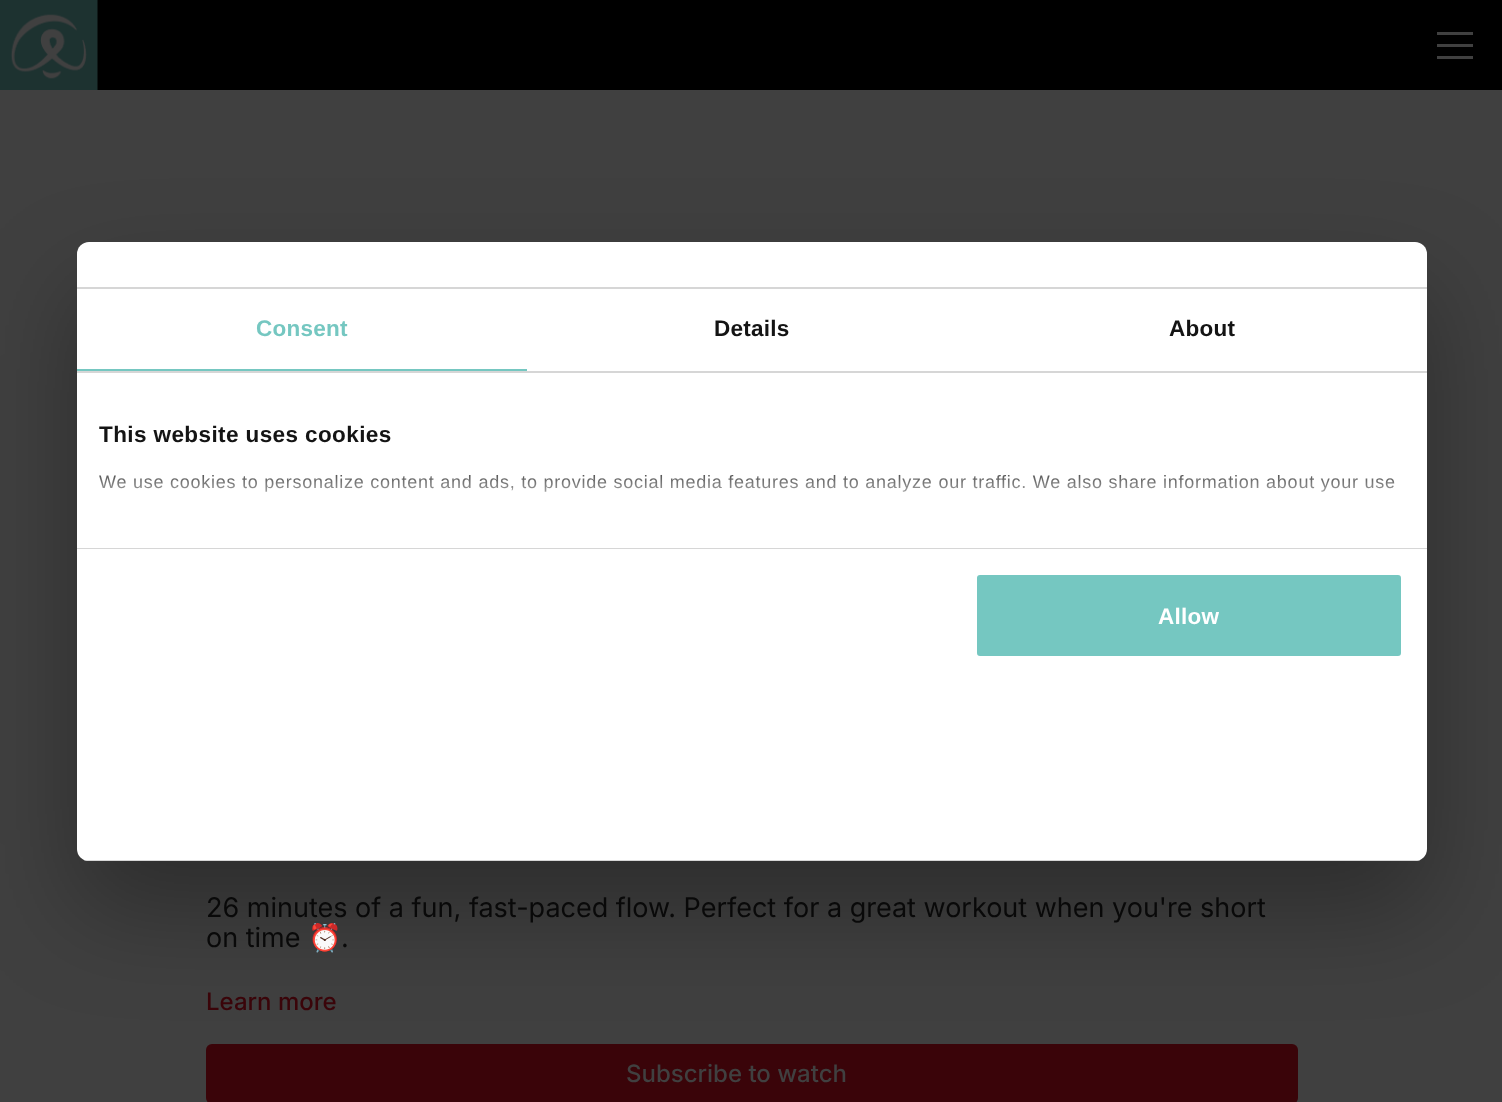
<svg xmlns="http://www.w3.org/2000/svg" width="1502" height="1102">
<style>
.a{font:bold 22.5px Liberation Sans;letter-spacing:0.25px;fill:#75c7c1}
.b{font:bold 22.5px Liberation Sans;letter-spacing:0.25px;fill:#141414}
.c{font:bold 22.5px Liberation Sans;letter-spacing:0.4px;fill:#141414}
.d{font:18px Liberation Sans;letter-spacing:0.75px;fill:#141414}
.e{font:bold 22.5px Liberation Sans;letter-spacing:0.25px;fill:#fff}
.f{font:27px Inter;fill:#090909}
.g{font:27px Noto Color Emoji;fill:#090909}
.h{font:500 24px Inter;fill:#3a0409}
.i{font:500 24px Inter;fill:#404040}
</style>
<defs>
<clipPath id="clip1"><rect x="77" y="242" width="1350" height="619" rx="12"/></clipPath>
<linearGradient id="g1" gradientUnits="userSpaceOnUse" x1="742" y1="548" x2="742" y2="459"><stop offset="0" stop-color="#fff"/><stop offset="0.5" stop-color="#fff" stop-opacity="0.8"/><stop offset="1" stop-color="#fff" stop-opacity="0"/></linearGradient>
</defs>
<rect width="100%" height="100%" fill="#404040"/>
<path fill="#000" d="M97 0h1405v90H97z"/>
<image href="1.png" x="0" y="0" width="98" height="90"/>
<path fill="#404040" d="M1437 44h36v3H1437z"/>
<path fill="#404040" d="M1437 32h36v3H1437z"/>
<path fill="#404040" d="M1437 56h36v3H1437z"/>
<rect fill="#3a0409" x="206" y="1044" width="1092" height="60" rx="6"/>
<rect fill="#0000004d" filter="blur(51px)" x="77" y="290" width="1350" height="619" rx="12"/>
<rect fill="#fff" x="77" y="242" width="1350" height="619" rx="12"/>
<path fill="#d6d6d6" d="M77 287h1350v2H77z"/>
<path fill="#d6d6d6" d="M77 371h1350v2H77z"/>
<path fill="#75c7c1" d="M77 369h450v2H77z"/>
<path fill="#d6d6d6" d="M77 548h1350v1H77z"/>
<g clip-path="url(#clip1)">
<path fill="#d6d6d6" d="M77 860h1350v1H77z"/>
</g>
<rect fill="#75c7c1" stroke="#fff" stroke-width="3" x="975.5" y="573.5" width="427" height="84" rx="4.5"/>
<text class="a" x="256" y="336">Consent</text>
<text class="b" x="714" y="336">Details</text>
<text class="b" x="1169" y="336">About</text>
<text class="c" x="99" y="442">This website uses cookies</text>
<text class="d" x="99" y="488">We use cookies to personalize content and ads, to provide social media features and to analyze our traffic. We also share information about your use</text>
<path fill="url(#g1)" d="M99 474h1296v18H99z"/>
<text class="e" x="1158" y="624">Allow</text>
<text class="f" x="206" y="917">26 minutes of a fun, fast-paced flow. Perfect for a great workout when you're short</text>
<text class="f" x="206" y="947">on time</text>
<text class="g" x="308" y="947">⏰</text>
<text class="f" x="341" y="947">.</text>
<text class="h" x="206" y="1010">Learn more</text>
<text class="i" x="626" y="1082">Subscribe to watch</text>
</svg>
